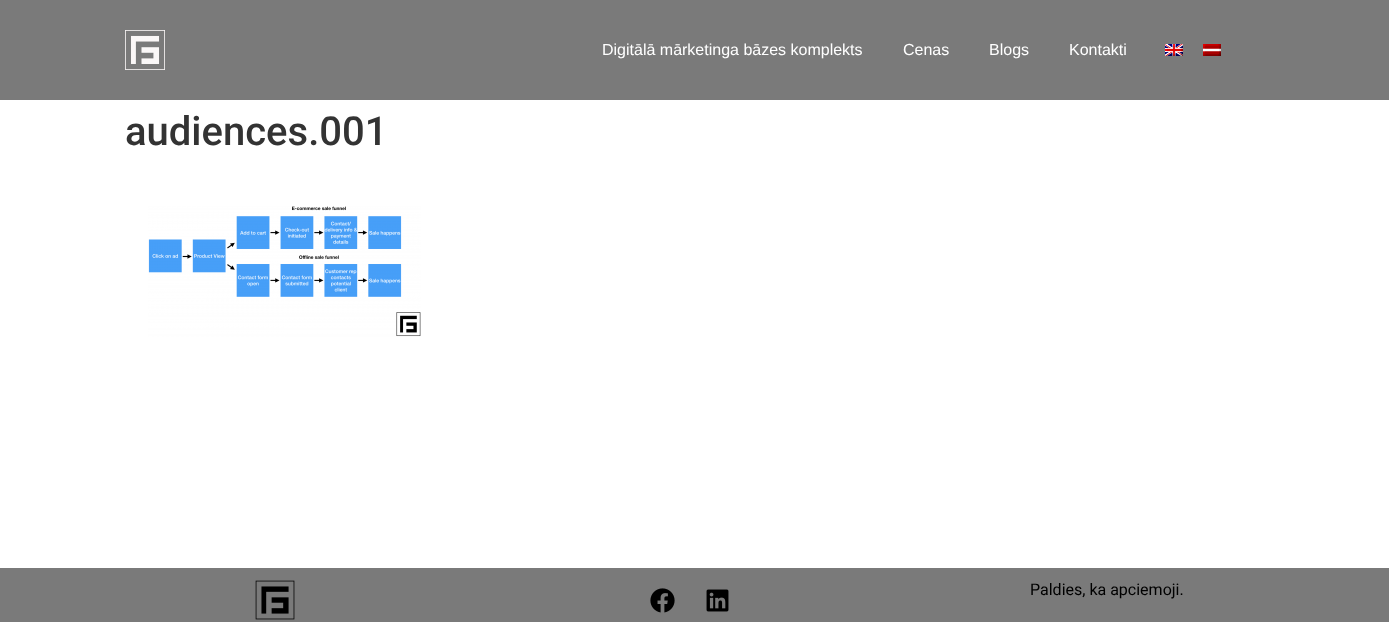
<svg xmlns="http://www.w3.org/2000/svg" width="1389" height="622">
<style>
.a{font:16px Liberation Sans;fill:#fff}
.b{font:500 40px Roboto;fill:#333}
.c{font:16px Roboto;fill:#000}
</style>
<rect width="100%" height="100%" fill="#fff"/>
<path fill="#7a7a7a" d="M0 0h1389v100H0z"/>
<image href="1.png" x="125" y="30" width="40" height="40"/>
<image href="2.png" x="1165" y="44" width="18" height="12"/>
<image href="3.png" x="1203" y="44" width="18" height="12"/>
<image href="4.png" x="148" y="206" width="273" height="131"/>
<path fill="#7a7a7a" d="M0 568h1389v54H0z"/>
<image href="5.png" x="255" y="580" width="40" height="40"/>
<image href="6.png" x="650" y="588" width="25" height="25"/>
<image href="7.png" x="706" y="589" width="23" height="23"/>
<text class="a" x="602" y="55">Digitālā mārketinga bāzes komplekts</text>
<text class="a" x="903" y="55">Cenas</text>
<text class="a" x="989" y="55">Blogs</text>
<text class="a" x="1069" y="55">Kontakti</text>
<text class="b" x="125" y="145">audiences.001</text>
<text class="c" x="1030" y="595">Paldies, ka apciemoji.</text>
</svg>
